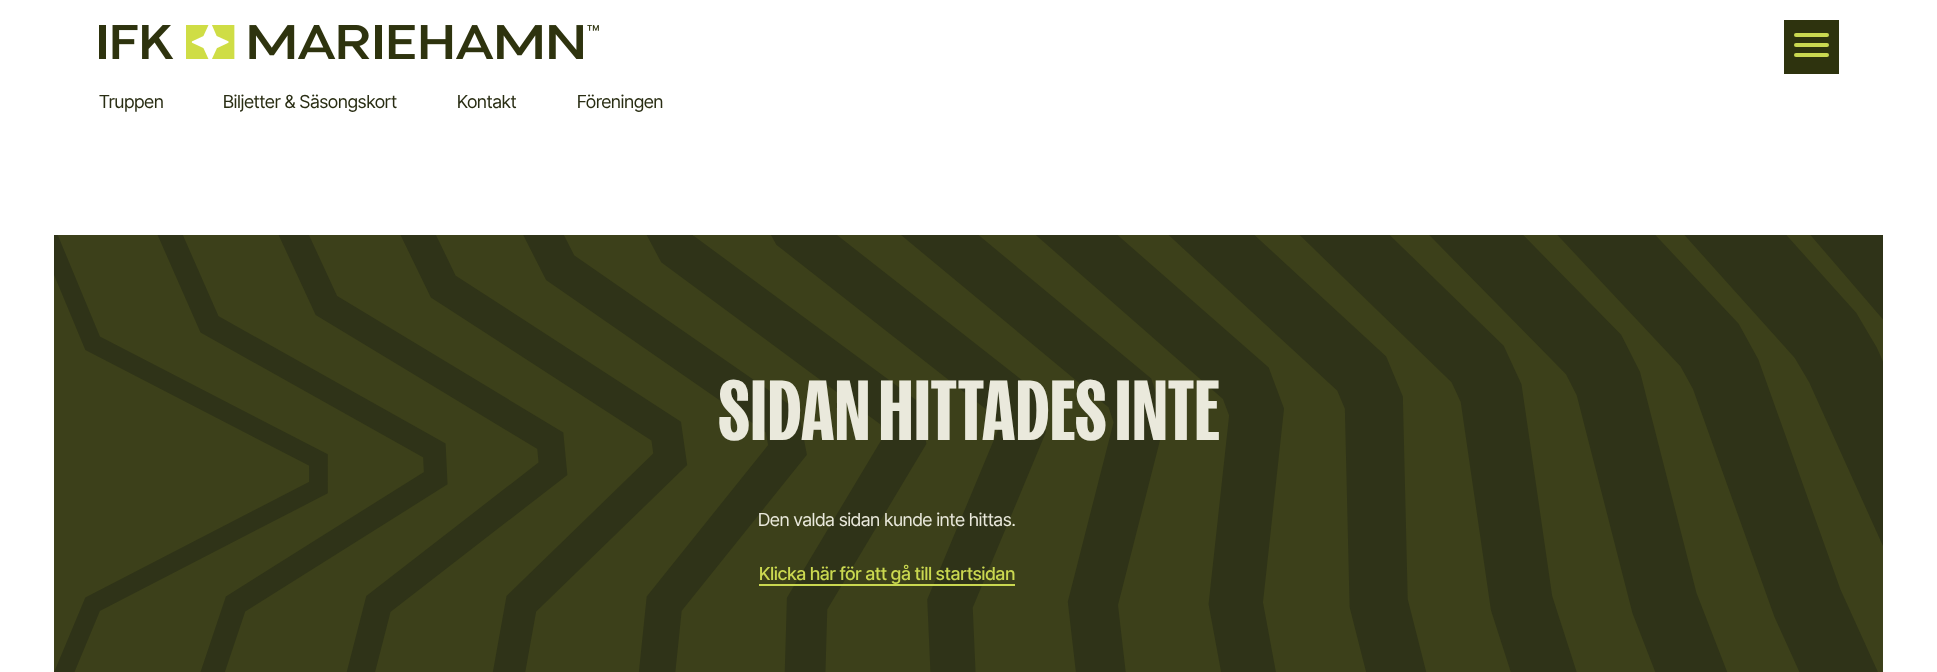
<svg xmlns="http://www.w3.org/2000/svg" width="1937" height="672">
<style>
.a{font:18px Inter Tight;fill:#292d13}
.b{font:900 80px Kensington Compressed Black;fill:#eae9dc}
.c{font:18px Inter Tight;fill:#eae9dc}
.d{font:500 18px Inter Tight;fill:#cad850}
</style>
<rect width="100%" height="100%" fill="#fff"/>
<image href="1.png" x="99" y="25" width="500" height="34"/>
<path fill="#2e330e" d="M1784 20h55v54H1784z"/>
<rect fill="#cad850" x="1794" y="33" width="35" height="4" rx="2"/>
<rect fill="#cad850" x="1794" y="43" width="35" height="4" rx="2"/>
<rect fill="#cad850" x="1794" y="53" width="35" height="4" rx="2"/>
<image href="2.png" x="54" y="235" width="1829" height="437"/>
<path fill="#cad850" d="M759 584h256v2H759z"/>
<text class="a" x="99" y="108">Truppen</text>
<text class="a" x="223" y="108">Biljetter &amp; Säsongskort</text>
<text class="a" x="457" y="108">Kontakt</text>
<text class="a" x="577" y="108">Föreningen</text>
<text class="b" x="718" y="440">SIDAN HITTADES INTE</text>
<text class="c" x="758" y="526">Den valda sidan kunde inte hittas.</text>
<text class="d" x="759" y="580">Klicka här för att gå till startsidan</text>
</svg>
